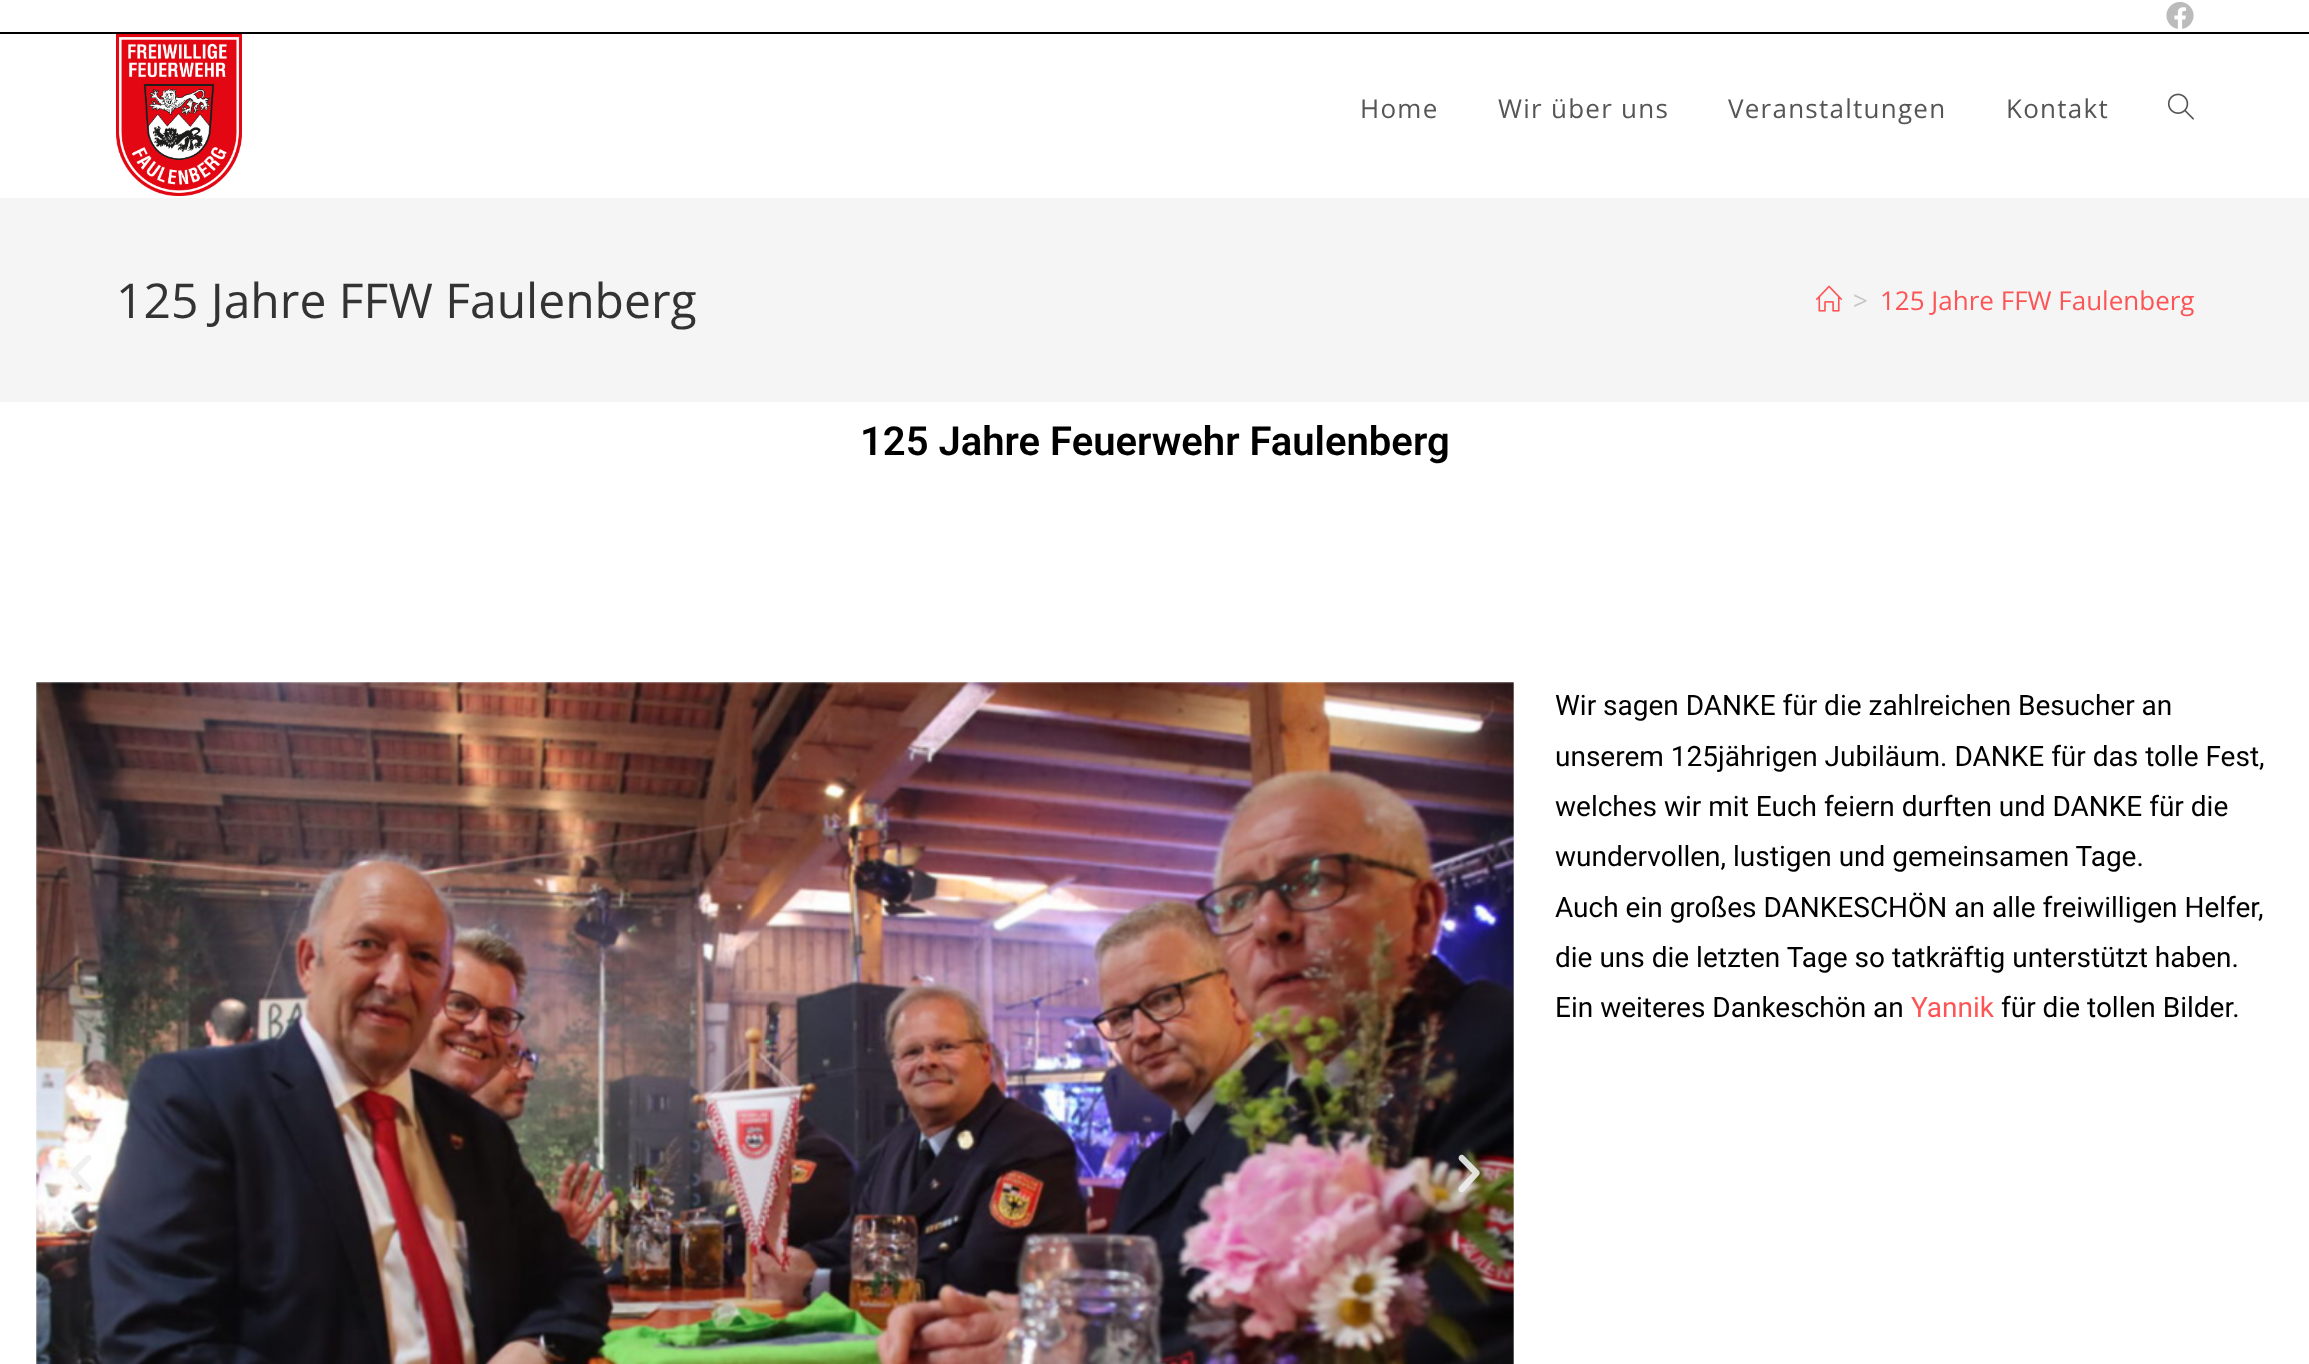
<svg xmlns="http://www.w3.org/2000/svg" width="2309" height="1364">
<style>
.a{font:26px Open Sans;letter-spacing:1.25px;fill:#555}
.b{font:48px Open Sans;fill:#333}
.c{font:26px Open Sans;fill:#c6c6c6}
.d{font:26px Open Sans;fill:#fd5555}
.e{font:600 40px Roboto;fill:#000}
.f{font:28px Roboto;fill:#000}
.g{font:28px Roboto;fill:#fd5555}
</style>
<rect width="100%" height="100%" fill="#fff"/>
<path fill="#000" d="M0 32h2309v2H0z"/>
<image href="1.png" x="2166" y="2" width="28" height="27"/>
<image href="2.png" x="116" y="34" width="126" height="162"/>
<image href="3.png" x="2167" y="93" width="27" height="27"/>
<path fill="#f5f5f5" d="M0 198h2309v204H0z"/>
<image href="4.png" x="1816" y="285" width="26" height="27"/>
<image href="5.png" x="36" y="682" width="1478" height="682"/>
<image href="6.png" x="70" y="1155" width="22" height="37"/>
<image href="7.png" x="1458" y="1154" width="22" height="39"/>
<text class="a" x="1360" y="118">Home</text>
<text class="a" x="1498" y="118">Wir über uns</text>
<text class="a" x="1728" y="118">Veranstaltungen</text>
<text class="a" x="2006" y="118">Kontakt</text>
<text class="b" x="116" y="318">125 Jahre FFW Faulenberg</text>
<text class="c" x="1853" y="310">&gt;</text>
<text class="d" x="1880" y="310">125 Jahre FFW Faulenberg</text>
<text class="e" x="860" y="455">125 Jahre Feuerwehr Faulenberg</text>
<text class="f" x="1555" y="715">Wir sagen DANKE für die zahlreichen Besucher an</text>
<text class="f" x="1555" y="766">unserem 125jährigen Jubiläum. DANKE für das tolle Fest,</text>
<text class="f" x="1555" y="816">welches wir mit Euch feiern durften und DANKE für die</text>
<text class="f" x="1555" y="866">wundervollen, lustigen und gemeinsamen Tage.</text>
<text class="f" x="1555" y="917">Auch ein großes DANKESCHÖN an alle freiwilligen Helfer,</text>
<text class="f" x="1555" y="967">die uns die letzten Tage so tatkräftig unterstützt haben.</text>
<text class="f" x="1555" y="1017">Ein weiteres Dankeschön an</text>
<text class="g" x="1911" y="1017">Yannik</text>
<text class="f" x="2001" y="1017">für die tollen Bilder.</text>
</svg>
